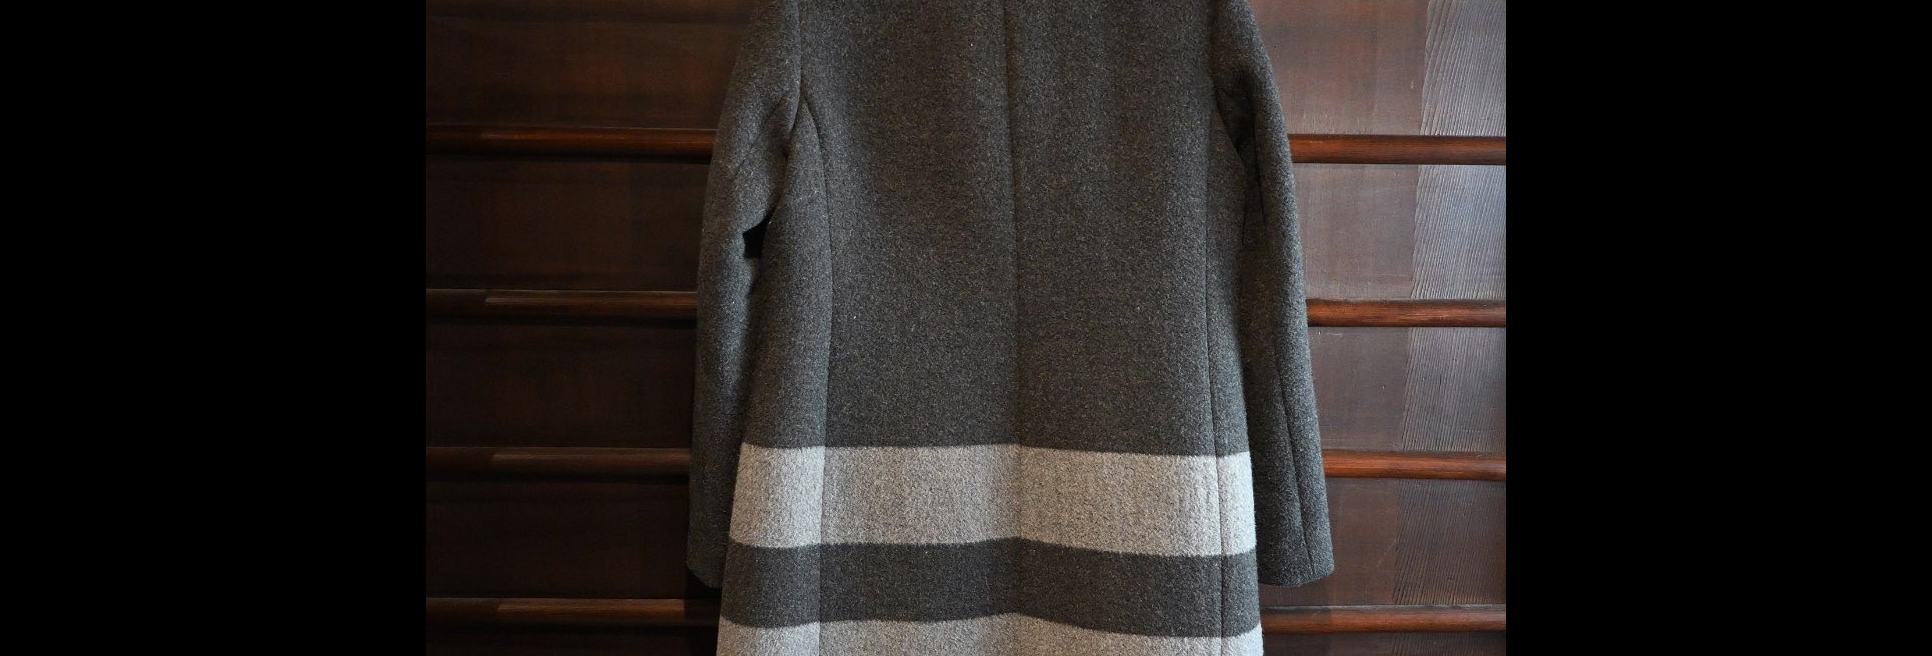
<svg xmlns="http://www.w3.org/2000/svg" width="1932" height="656">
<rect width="100%" height="100%" fill="#000"/>
<image href="1.png" x="426" y="0" width="1080" height="656"/>
</svg>
